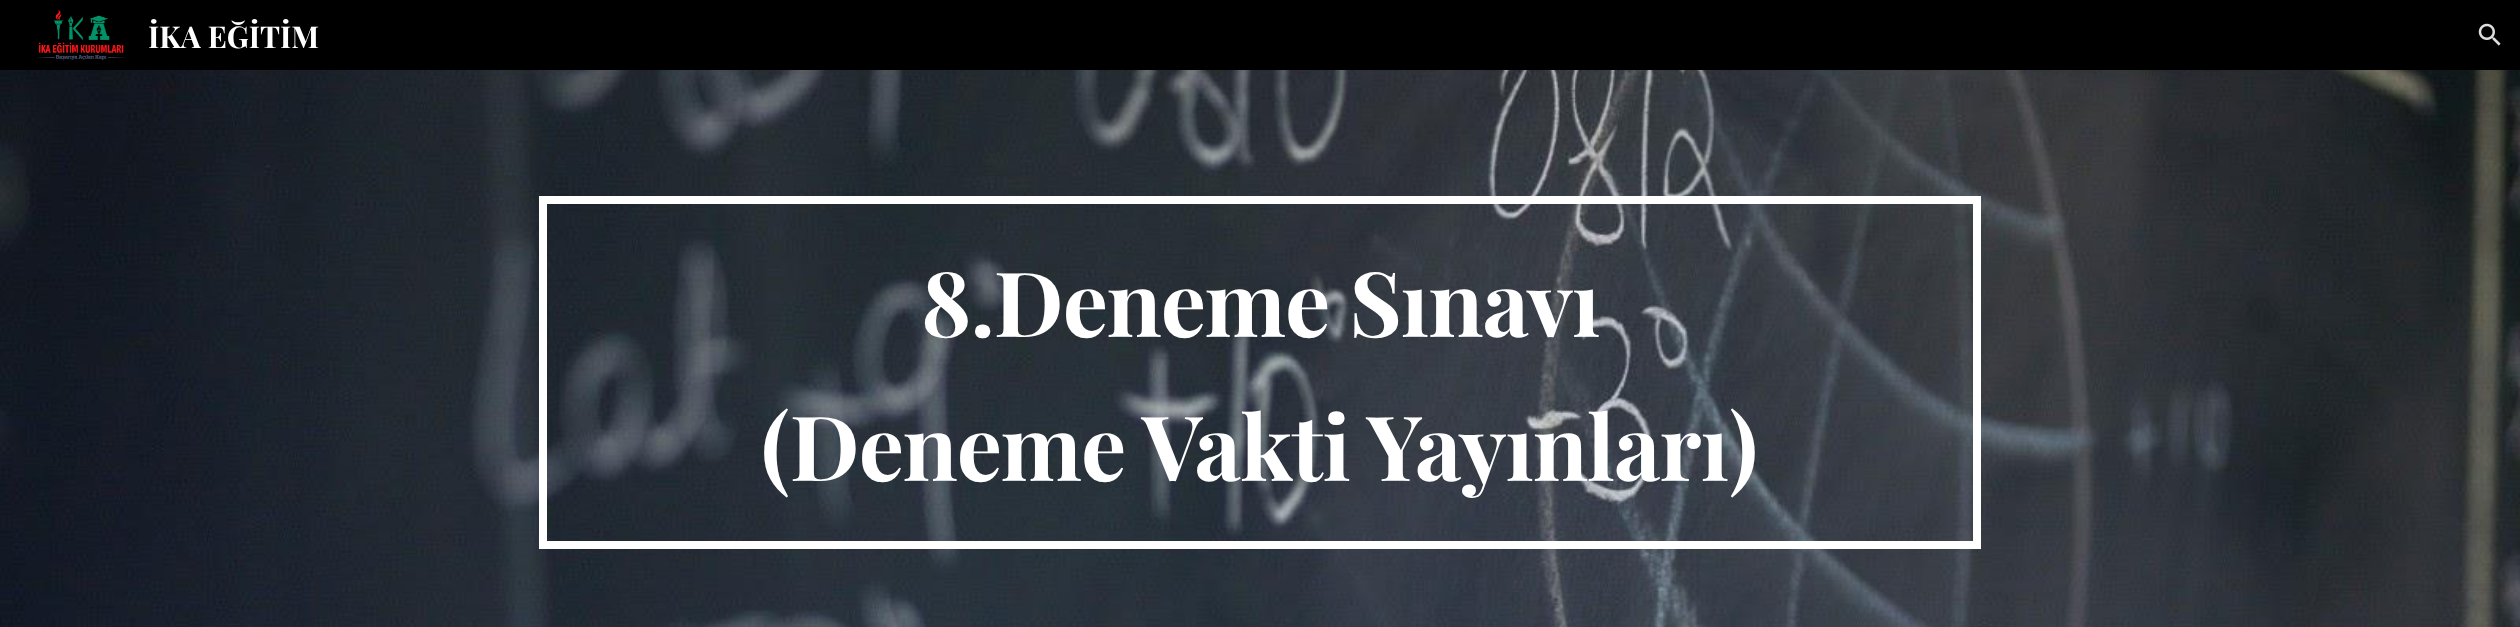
<svg xmlns="http://www.w3.org/2000/svg" width="2520" height="627">
<style>
.a{font:bold 30px Playfair Display;fill:#fff}
.b{font:bold 90px Playfair Display;letter-spacing:-1px;fill:#fff}
</style>
<rect width="100%" height="100%" fill="#fff"/>
<path fill="#000" d="M0 0h2520v70H0z"/>
<image href="1.png" x="36" y="10" width="90" height="50"/>
<image href="2.png" x="2478" y="23" width="23" height="23"/>
<image href="3.png" x="0" y="70" width="2520" height="557"/>
<path fill="none" stroke="#fff" stroke-width="8" d="M543 200h1434v345H543z"/>
<text class="a" x="148" y="48">İKA EĞİTİM</text>
<text class="b" x="921" y="337">8.Deneme Sınavı</text>
<text class="b" x="761" y="481">(Deneme Vakti Yayınları)</text>
</svg>
